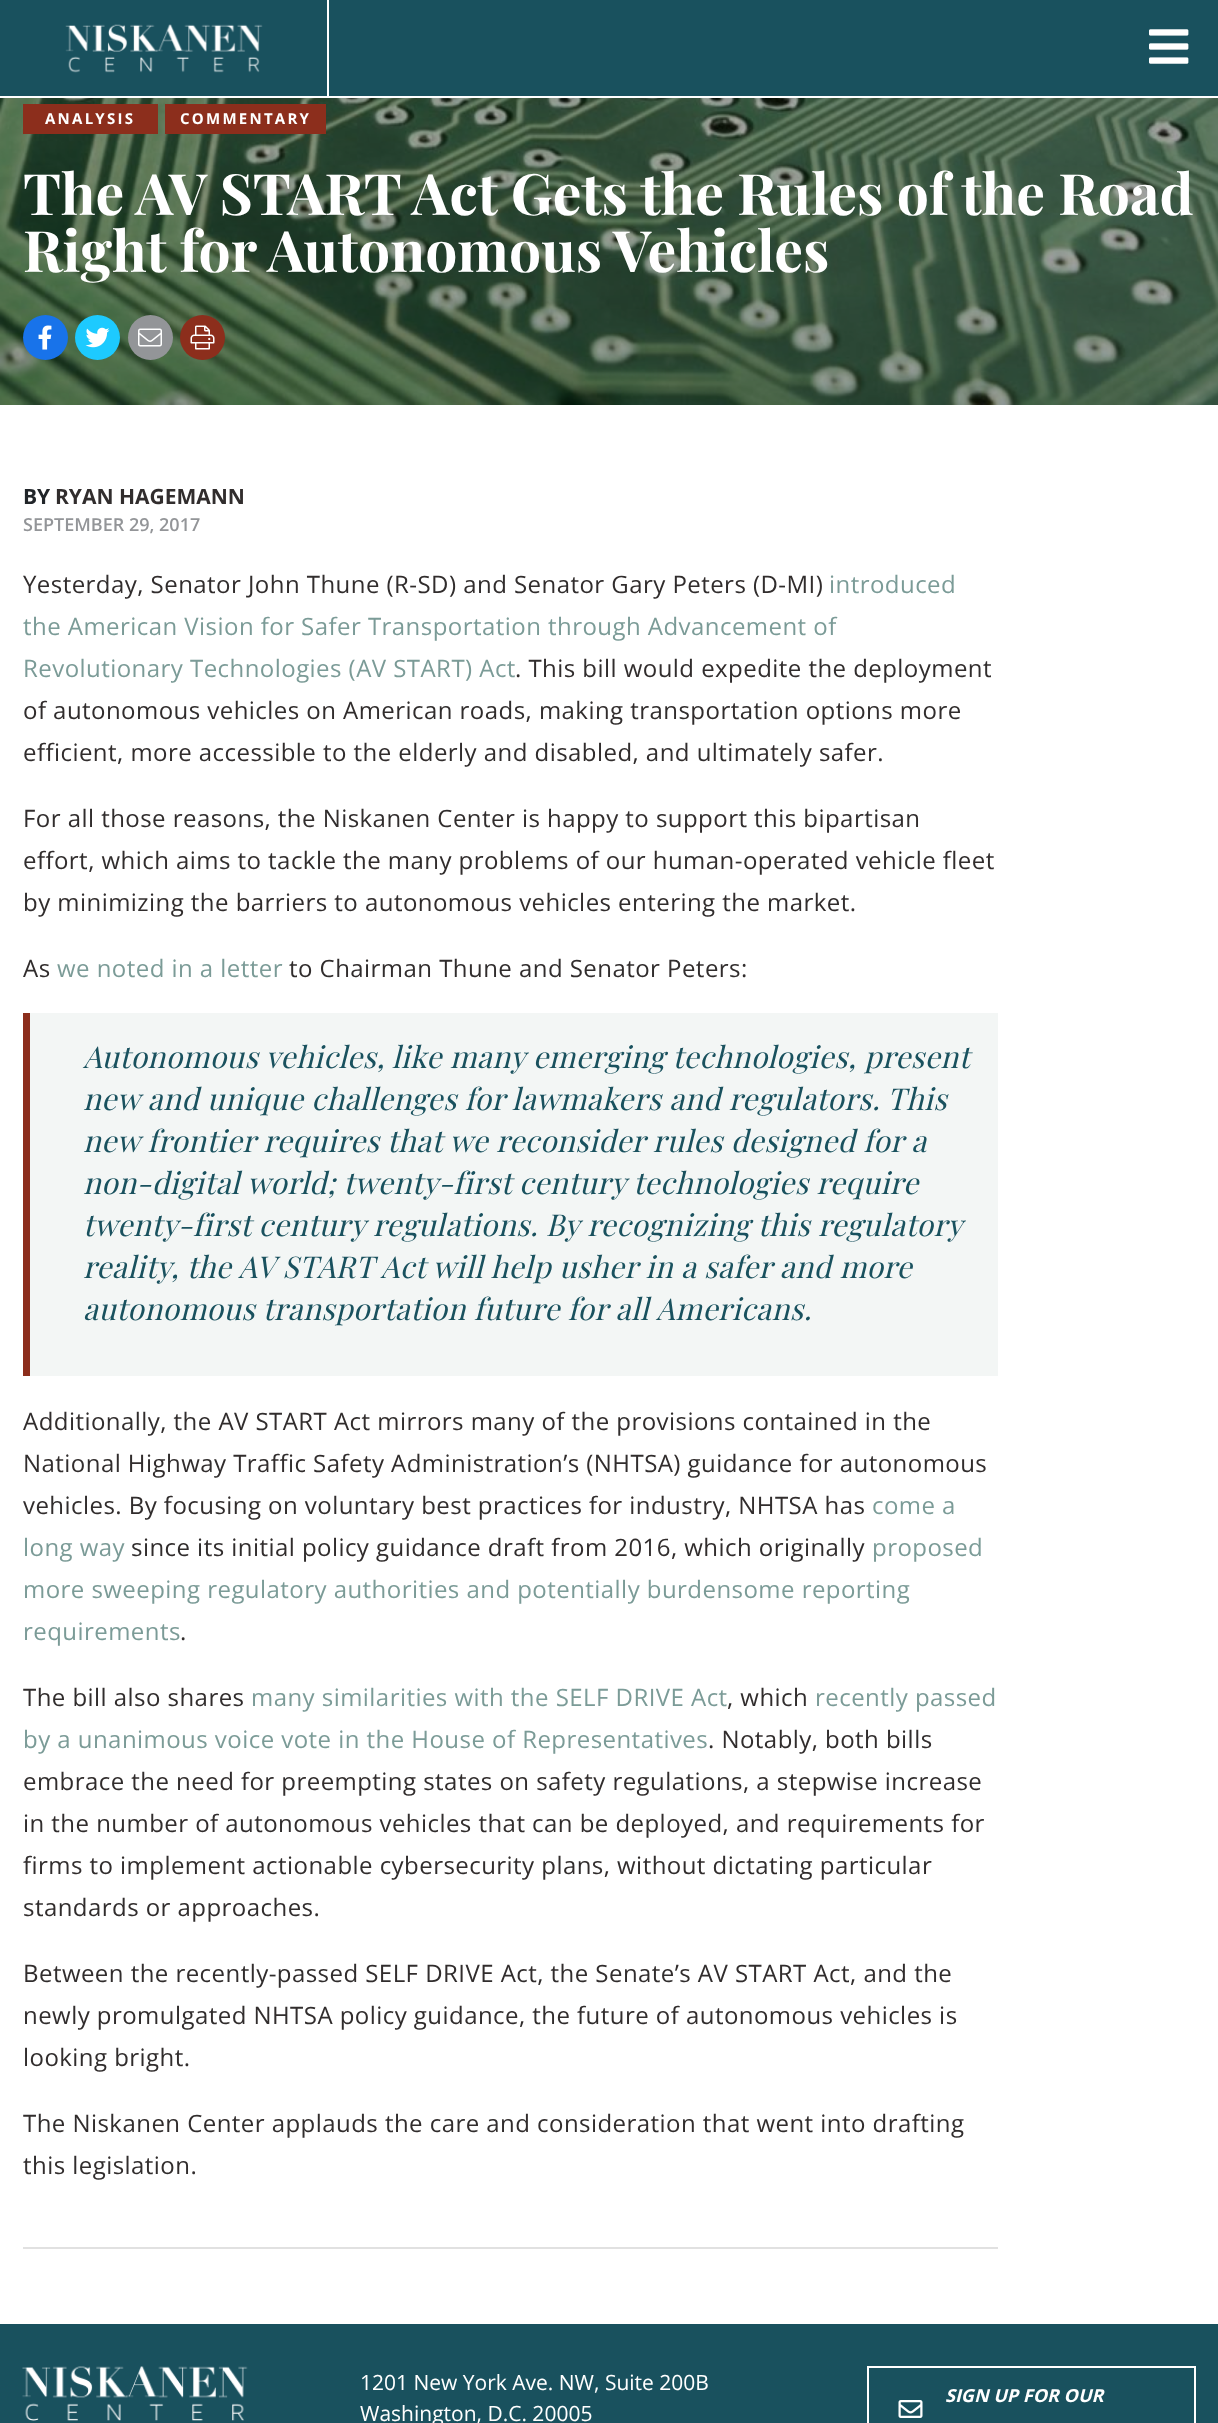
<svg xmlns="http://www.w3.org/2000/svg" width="1218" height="2423">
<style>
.a{font:bold 15px Open Sans;letter-spacing:2.25px;fill:#fff}
.b{font:bold 57px Playfair Display;fill:#fff}
.c{font:bold 21px Open Sans;fill:#212529}
.d{font:bold 21px Open Sans;fill:#312d2d}
.e{font:600 18px Open Sans;fill:#939598}
.f{font:24px Open Sans;letter-spacing:0.45px;fill:#312d2d}
.g{font:24px Open Sans;letter-spacing:0.45px;fill:#7b9b97}
.h{font:italic 30px Playfair Display;letter-spacing:0.45px;fill:#19515e}
.i{font:21px Open Sans;fill:#fff}
.j{font:italic bold 18px Open Sans;fill:#fff}
</style>
<rect width="100%" height="100%" fill="#fff"/>
<path fill="#19515e" d="M0 0h1218v96H0z"/>
<path fill="#fff" d="M327 0h2v96H327z"/>
<image href="1.png" x="65" y="24" width="198" height="49"/>
<image href="2.png" x="1149" y="29" width="40" height="35"/>
<image href="3.png" x="0" y="98" width="1218" height="307"/>
<path fill="#8c2e1c" d="M23 104h135v30H23z"/>
<path fill="#8c2e1c" d="M165 104h161v30H165z"/>
<circle fill="#1873ea" cx="45.5" cy="337.5" r="22.5"/>
<image href="4.png" x="38" y="325" width="14" height="25"/>
<circle fill="#1dcaff" cx="97.5" cy="337.5" r="22.5"/>
<image href="5.png" x="85" y="327" width="25" height="21"/>
<circle fill="#939598" cx="150.5" cy="337.5" r="22.5"/>
<image href="6.png" x="138" y="328" width="24" height="19"/>
<circle fill="#8c2e1c" cx="202.5" cy="337.5" r="22.5"/>
<image href="7.png" x="190" y="325" width="25" height="25"/>
<path fill="#e1e1e1" d="M23 2247h975v2H23z"/>
<path fill="#f3f6f5" d="M30 1013h968v363H30z"/>
<path fill="#8c2e1c" d="M23 1013h7v363H23z"/>
<path fill="#19515e" d="M0 2324h1218v99H0z"/>
<image href="8.png" x="22" y="2366" width="226" height="55"/>
<path fill="none" stroke="#fff" stroke-width="2" d="M868 2367h327v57H868z"/>
<image href="9.png" x="898" y="2400" width="25" height="18"/>
<text class="a" x="45" y="124">ANALYSIS</text>
<text class="a" x="180" y="124">COMMENTARY</text>
<text class="b" x="23" y="215">The AV START Act Gets the Rules of the Road</text>
<text class="b" x="23" y="272">Right for Autonomous Vehicles</text>
<text class="c" x="23" y="504">BY</text>
<text class="d" x="55" y="504">RYAN HAGEMANN</text>
<text class="e" x="23" y="531">SEPTEMBER 29, 2017</text>
<text class="f" x="23" y="593">Yesterday, Senator John Thune (R-SD) and Senator Gary Peters (D-MI)</text>
<text class="g" x="829" y="593">introduced</text>
<text class="g" x="23" y="635">the American Vision for Safer Transportation through Advancement of</text>
<text class="g" x="23" y="677">Revolutionary Technologies (AV START) Act</text>
<text class="f" x="515" y="677">. This bill would expedite the deployment</text>
<text class="f" x="23" y="719">of autonomous vehicles on American roads, making transportation options more</text>
<text class="f" x="23" y="761">efficient, more accessible to the elderly and disabled, and ultimately safer.</text>
<text class="f" x="23" y="827">For all those reasons, the Niskanen Center is happy to support this bipartisan</text>
<text class="f" x="23" y="869">effort, which aims to tackle the many problems of our human-operated vehicle fleet</text>
<text class="f" x="23" y="911">by minimizing the barriers to autonomous vehicles entering the market.</text>
<text class="f" x="23" y="977">As</text>
<text class="g" x="57" y="977">we noted in a letter</text>
<text class="f" x="289" y="977">to Chairman Thune and Senator Peters:</text>
<text class="h" x="83" y="1068">Autonomous vehicles, like many emerging technologies, present</text>
<text class="h" x="83" y="1110">new and unique challenges for lawmakers and regulators. This</text>
<text class="h" x="83" y="1152">new frontier requires that we reconsider rules designed for a</text>
<text class="h" x="83" y="1194">non-digital world; twenty-first century technologies require</text>
<text class="h" x="83" y="1236">twenty-first century regulations. By recognizing this regulatory</text>
<text class="h" x="83" y="1278">reality, the AV START Act will help usher in a safer and more</text>
<text class="h" x="83" y="1320">autonomous transportation future for all Americans.</text>
<text class="f" x="23" y="1430">Additionally, the AV START Act mirrors many of the provisions contained in the</text>
<text class="f" x="23" y="1472">National Highway Traffic Safety Administration’s (NHTSA) guidance for autonomous</text>
<text class="f" x="23" y="1514">vehicles. By focusing on voluntary best practices for industry, NHTSA has</text>
<text class="g" x="872" y="1514">come a</text>
<text class="g" x="23" y="1556">long way</text>
<text class="f" x="131" y="1556">since its initial policy guidance draft from 2016, which originally</text>
<text class="g" x="872" y="1556">proposed</text>
<text class="g" x="23" y="1598">more sweeping regulatory authorities and potentially burdensome reporting</text>
<text class="g" x="23" y="1640">requirements</text>
<text class="f" x="180" y="1640">.</text>
<text class="f" x="23" y="1706">The bill also shares</text>
<text class="g" x="251" y="1706">many similarities with the SELF DRIVE Act</text>
<text class="f" x="727" y="1706">, which</text>
<text class="g" x="815" y="1706">recently passed</text>
<text class="g" x="23" y="1748">by a unanimous voice vote in the House of Representatives</text>
<text class="f" x="708" y="1748">. Notably, both bills</text>
<text class="f" x="23" y="1790">embrace the need for preempting states on safety regulations, a stepwise increase</text>
<text class="f" x="23" y="1832">in the number of autonomous vehicles that can be deployed, and requirements for</text>
<text class="f" x="23" y="1874">firms to implement actionable cybersecurity plans, without dictating particular</text>
<text class="f" x="23" y="1916">standards or approaches.</text>
<text class="f" x="23" y="1982">Between the recently-passed SELF DRIVE Act, the Senate’s AV START Act, and the</text>
<text class="f" x="23" y="2024">newly promulgated NHTSA policy guidance, the future of autonomous vehicles is</text>
<text class="f" x="23" y="2066">looking bright.</text>
<text class="f" x="23" y="2132">The Niskanen Center applauds the care and consideration that went into drafting</text>
<text class="f" x="23" y="2174">this legislation.</text>
<text class="i" x="360" y="2390">1201 New York Ave. NW, Suite 200B</text>
<text class="i" x="360" y="2421">Washington, D.C. 20005</text>
<text class="j" x="945" y="2402">SIGN UP FOR OUR</text>
</svg>
